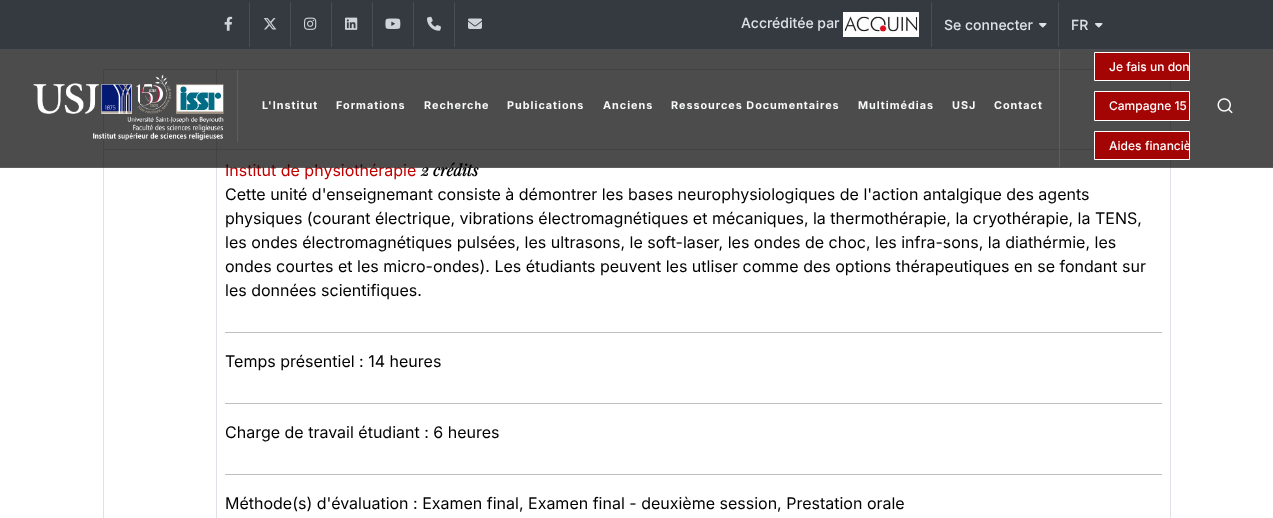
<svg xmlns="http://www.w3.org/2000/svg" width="1273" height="518">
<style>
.a{font:16px Inter;fill:#c00000}
.b{font:italic bold 16px Playfair Display;fill:#000}
.c{font:500 14px Inter;fill:#dee2e6}
.d{font:bold 10.8px Inter;letter-spacing:1px;fill:#f8f9fa}
.e{font:500 12px Inter;fill:#fff}
.f{font:16px Inter;fill:#000}
</style>
<defs>
<clipPath id="clip1"><path d="M1109 136h80v19H1109z"/></clipPath>
<clipPath id="clip2"><path d="M1109 57h80v19H1109z"/></clipPath>
</defs>
<rect width="100%" height="100%" fill="#fff"/>
<path fill="#dee2e6" d="M103 69h991v1H103z"/>
<path fill="#dee2e6" d="M1170 81h1v50H1170z"/>
<path fill="#dee2e6" d="M103 149h991v1H103z"/>
<path fill="#dee2e6" d="M103 69h1v449H103z"/>
<path fill="#dee2e6" d="M1170 160h1v358H1170z"/>
<path fill="#dee2e6" d="M216 69h1v449H216z"/>
<path fill="#bfbfbf" d="M225 332h937v1H225z"/>
<path fill="#bfbfbf" d="M225 403h937v1H225z"/>
<path fill="#bfbfbf" d="M225 474h937v1H225z"/>
<text class="a" x="225" y="176">Institut de physiothérapie</text>
<text class="b" x="421" y="176">2 crédits</text>
<path fill="#000000b3" d="M0 50h1273v118H0z"/>
<path fill="#ffffff1a" d="M1059 45h1v122H1059z"/>
<path fill="#343a40" d="M0 0h1273v49H0z"/>
<image href="9.png" x="1095" y="23" width="8" height="5"/>
<text class="c" x="1071" y="30">FR</text>
<path fill="#484e53" d="M1058 2h1v45H1058z"/>
<image href="9.png" x="1039" y="23" width="8" height="5"/>
<text class="c" x="944" y="30">Se connecter</text>
<path fill="#484e53" d="M931 2h1v45H931z"/>
<image href="8.png" x="843" y="12" width="76" height="25"/>
<text class="c" x="741" y="28">Accréditée par</text>
<image href="7.png" x="468" y="18" width="14" height="11"/>
<path fill="#484e53" d="M454 2h1v45H454z"/>
<image href="6.png" x="427" y="16" width="14" height="15"/>
<path fill="#484e53" d="M413 2h1v45H413z"/>
<image href="5.png" x="385" y="18" width="16" height="11"/>
<path fill="#484e53" d="M372 2h1v45H372z"/>
<image href="4.png" x="345" y="17" width="13" height="13"/>
<path fill="#484e53" d="M331 2h1v45H331z"/>
<image href="3.png" x="304" y="17" width="13" height="13"/>
<path fill="#484e53" d="M290 2h1v45H290z"/>
<image href="2.png" x="263" y="18" width="14" height="12"/>
<path fill="#484e53" d="M249 2h1v45H249z"/>
<image href="1.png" x="224" y="16" width="9" height="15"/>
<path fill="#484e53" d="M0 49h1273v1H0z"/>
<image href="11.png" x="1217" y="98" width="16" height="16"/>
<text class="d" x="858" y="109">Multimédias</text>
<text class="d" x="671" y="109">Ressources Documentaires</text>
<text class="d" x="603" y="109">Anciens</text>
<text class="d" x="507" y="109">Publications</text>
<text class="d" x="424" y="109">Recherche</text>
<text class="d" x="336" y="109">Formations</text>
<text class="d" x="262" y="109">L'Institut</text>
<path fill="#a30505" stroke="#fff" d="M1094.5 131.5h95v28H1094.5z"/>
<g clip-path="url(#clip1)">
<text class="e" x="1145" y="150">financiè</text>
</g>
<text class="e" x="1109" y="150">Aides</text>
<path fill="#a30505" stroke="#fff" d="M1094.5 91.5h95v29H1094.5z"/>
<text class="e" x="1109" y="110">Campagne 15</text>
<path fill="#a30505" stroke="#fff" d="M1094.5 52.5h95v28H1094.5z"/>
<g clip-path="url(#clip2)">
<text class="e" x="1109" y="71">Je fais un don</text>
</g>
<image href="10.png" x="33" y="74" width="191" height="67"/>
<path fill="#ffffff1a" d="M237 70h1v72H237z"/>
<text class="d" x="994" y="109">Contact</text>
<text class="d" x="952" y="109">USJ</text>
<path fill="#ffffff1a" d="M0 167h1273v1H0z"/>
<text class="f" x="225" y="200">Cette unité d'enseignemant consiste à démontrer les bases neurophysiologiques de l'action antalgique des agents</text>
<text class="f" x="225" y="224">physiques (courant électrique, vibrations électromagnétiques et mécaniques, la thermothérapie, la cryothérapie, la TENS,</text>
<text class="f" x="225" y="248">les ondes électromagnétiques pulsées, les ultrasons, le soft-laser, les ondes de choc, les infra-sons, la diathérmie, les</text>
<text class="f" x="225" y="272">ondes courtes et les micro-ondes). Les étudiants peuvent les utliser comme des options thérapeutiques en se fondant sur</text>
<text class="f" x="225" y="296">les données scientifiques.</text>
<text class="f" x="225" y="367">Temps présentiel : 14 heures</text>
<text class="f" x="225" y="438">Charge de travail étudiant : 6 heures</text>
<text class="f" x="225" y="509">Méthode(s) d'évaluation : Examen final, Examen final - deuxième session, Prestation orale</text>
</svg>
